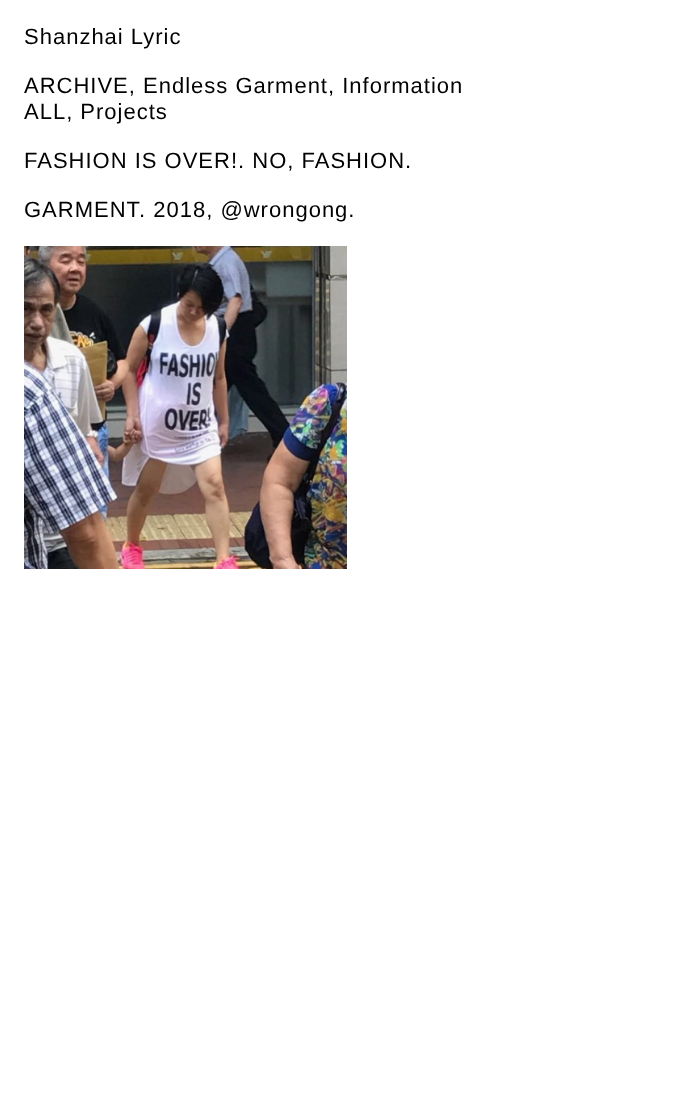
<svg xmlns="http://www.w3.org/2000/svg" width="693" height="1116">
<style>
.a{font:22px Liberation Sans;letter-spacing:1px;fill:#000}
</style>
<rect width="100%" height="100%" fill="#fff"/>
<image href="1.png" x="24" y="246" width="323" height="323"/>
<text class="a" x="24" y="44">Shanzhai Lyric</text>
<text class="a" x="24" y="93">ARCHIVE, Endless Garment, Information</text>
<text class="a" x="24" y="119">ALL, Projects</text>
<text class="a" x="24" y="168">FASHION IS OVER!. NO, FASHION.</text>
<text class="a" x="24" y="217">GARMENT</text>
<text class="a" x="139" y="217">. 2018, @wrongong.</text>
</svg>
